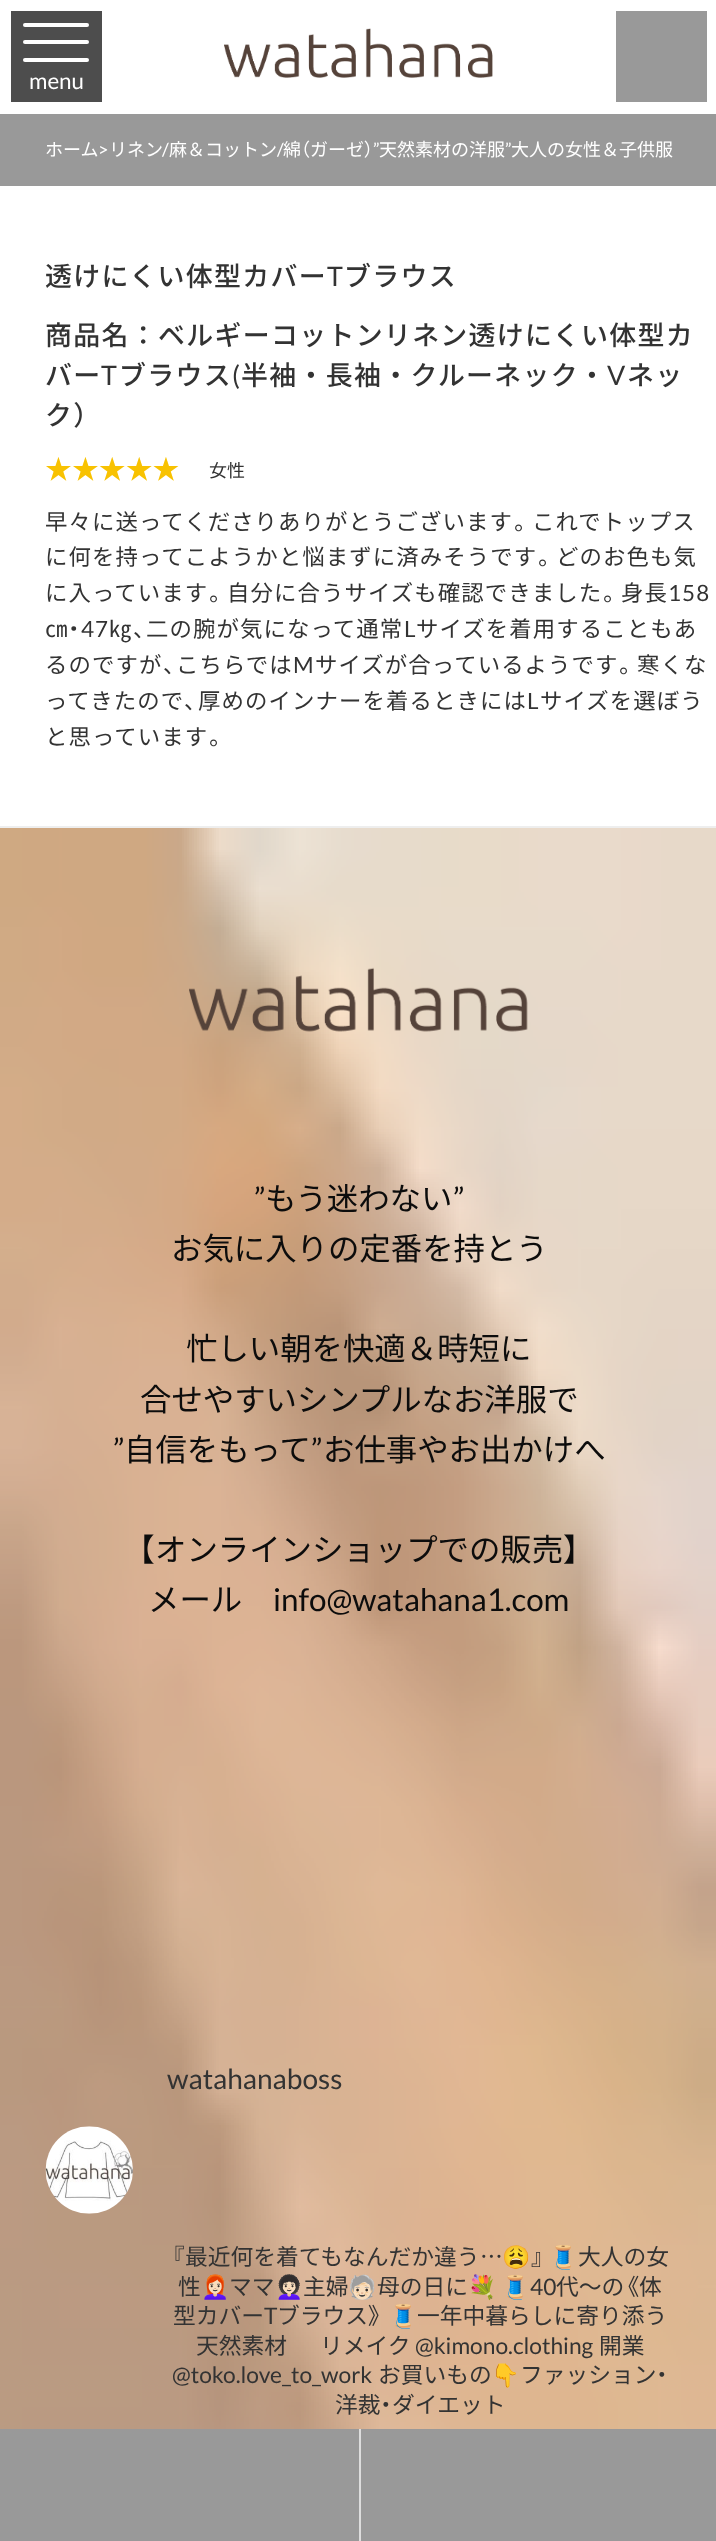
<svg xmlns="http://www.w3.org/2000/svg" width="716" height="2541">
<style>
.a{font:22.4px Lato;fill:#fff}
.b{font:18px Noto Sans JP;fill:#fff}
.c{font:18px Lato;fill:#fff}
.d{font:18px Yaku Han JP;fill:#fff}
.e{font:500 26.9px Noto Sans JP;letter-spacing:1.35px;fill:#333}
.f{font:26.9px Lato;letter-spacing:1.35px;fill:#333}
.g{font:26.9px Noto Sans JP;fill:#f8c201}
.h{font:18px Noto Sans JP;fill:#333}
.i{font:22.4px Noto Sans JP;letter-spacing:1.1px;fill:#333}
.j{font:22.4px Yaku Han JP;letter-spacing:1.1px;fill:#333}
.k{font:22.4px Lato;letter-spacing:1.1px;fill:#333}
.l{font:31.4px Lato;fill:#0c0c0c}
.m{font:31.4px Noto Sans JP;fill:#0c0c0c}
.n{font:31.4px Yaku Han JP;fill:#0c0c0c}
.o{font:28px Lato;fill:#333}
.p{font:22.75px Yaku Han JP;fill:#333}
.q{font:22.75px Noto Sans JP;fill:#333}
.r{font:22.75px Noto Color Emoji;fill:#333}
.s{font:22.75px Lato;fill:#333}
</style>
<rect width="100%" height="100%" fill="#fff"/>
<image href="1.png" x="224" y="28" width="269" height="50"/>
<path fill="#999" d="M616 11h91v91H616z"/>
<path fill="#4d4d4d" d="M11 11h91v91H11z"/>
<rect fill="#fff" x="23" y="23" width="66" height="4" rx="2"/>
<rect fill="#fff" x="23" y="40" width="66" height="4" rx="2"/>
<rect fill="#fff" x="23" y="58" width="66" height="4" rx="2"/>
<path fill="#999" d="M0 114h716v72H0z"/>
<path fill="#eee" d="M0 826h716v2H0z"/>
<image href="2.png" x="0" y="828" width="716" height="1601"/>
<image href="3.png" x="189" y="967" width="339" height="65"/>
<image href="4.png" x="45" y="2126" width="88" height="88"/>
<path fill="#999" d="M0 2429h359v112H0z"/>
<path fill="#999" d="M361 2429h355v112H361z"/>
<path fill="#ddd" d="M359 2429h2v112H359z"/>
<text class="a" x="29" y="89">menu</text>
<text class="b" x="45" y="156">ホーム</text>
<text class="c" x="98" y="156">&gt;</text>
<text class="b" x="109" y="156">リネン</text>
<text class="c" x="162" y="156">/</text>
<text class="b" x="169" y="156">麻＆コットン</text>
<text class="c" x="277" y="156">/</text>
<text class="b" x="283" y="156">綿</text>
<text class="d" x="301" y="156">（</text>
<text class="b" x="310" y="156">ガーゼ</text>
<text class="d" x="364" y="156">）</text>
<text class="c" x="373" y="156">”</text>
<text class="b" x="379" y="156">天然素材の洋服</text>
<text class="c" x="505" y="156">”</text>
<text class="b" x="511" y="156">大人の女性＆子供服</text>
<text class="e" x="45" y="286">透けにくい体型カバー</text>
<text class="f" x="327" y="286">T</text>
<text class="e" x="344" y="286">ブラウス</text>
<text class="e" x="45" y="345">商品名：ベルギーコットンリネン透けにくい体型カ</text>
<text class="e" x="45" y="385">バー</text>
<text class="f" x="101" y="385">T</text>
<text class="e" x="119" y="385">ブラウス</text>
<text class="f" x="232" y="385">(</text>
<text class="e" x="241" y="385">半袖・長袖・クルーネック・</text>
<text class="f" x="607" y="385">V</text>
<text class="e" x="627" y="385">ネッ</text>
<text class="e" x="45" y="425">ク）</text>
<text class="g" x="45" y="479">★★★★★</text>
<text class="h" x="209" y="477">女性</text>
<text class="i" x="45" y="530">早々に送ってくださりありがとうございます</text>
<text class="j" x="514" y="530">。</text>
<text class="i" x="532" y="530">これでトップス</text>
<text class="i" x="45" y="565">に何を持ってこようかと悩まずに済みそうです</text>
<text class="j" x="538" y="565">。</text>
<text class="i" x="556" y="565">どのお色も気</text>
<text class="i" x="45" y="601">に入っています</text>
<text class="j" x="209" y="601">。</text>
<text class="i" x="227" y="601">自分に合うサイズも確認できました</text>
<text class="j" x="603" y="601">。</text>
<text class="i" x="621" y="601">身長</text>
<text class="k" x="668" y="601">158</text>
<text class="i" x="45" y="637">㎝</text>
<text class="j" x="68" y="637">・</text>
<text class="k" x="81" y="637">47</text>
<text class="i" x="109" y="637">㎏</text>
<text class="i" x="146" y="637">二の腕が気になって通常</text>
<text class="k" x="404" y="637">L</text>
<text class="i" x="416" y="637">サイズを着用することもあ</text>
<text class="j" x="133" y="637">、</text>
<text class="i" x="45" y="673">るのですが</text>
<text class="j" x="163" y="673">、</text>
<text class="i" x="176" y="673">こちらでは</text>
<text class="k" x="293" y="673">M</text>
<text class="i" x="315" y="673">サイズが合っているようです</text>
<text class="j" x="619" y="673">。</text>
<text class="i" x="637" y="673">寒くな</text>
<text class="i" x="45" y="709">ってきたので</text>
<text class="j" x="184" y="709">、</text>
<text class="i" x="198" y="709">厚めのインナーを着るときには</text>
<text class="k" x="527" y="709">L</text>
<text class="i" x="540" y="709">サイズを選ぼう</text>
<text class="i" x="45" y="745">と思っています</text>
<text class="j" x="209" y="745">。</text>
<text class="l" x="254" y="1210">”</text>
<text class="m" x="265" y="1210">もう迷わない</text>
<text class="l" x="453" y="1210">”</text>
<text class="m" x="171" y="1260">お気に入りの定番を持とう</text>
<text class="m" x="186" y="1360">忙しい朝を快適＆時短に</text>
<text class="m" x="140" y="1411">合せやすいシンプルなお洋服で</text>
<text class="l" x="113" y="1461">”</text>
<text class="m" x="124" y="1461">自信をもって</text>
<text class="l" x="311" y="1461">”</text>
<text class="m" x="323" y="1461">お仕事やお出かけへ</text>
<text class="n" x="138" y="1561">【</text>
<text class="m" x="155" y="1561">オンラインショップでの販売</text>
<text class="n" x="563" y="1561">】</text>
<text class="m" x="148" y="1611">メール</text>
<text class="l" x="273" y="1611">info@watahana1.com</text>
<text class="o" x="167" y="2089">watahanaboss</text>
<text class="p" x="171" y="2265">『</text>
<text class="q" x="185" y="2265">最近何を着てもなんだか違う</text>
<text class="p" x="480" y="2265">…</text>
<text class="r" x="502" y="2265">😩</text>
<text class="p" x="531" y="2265">』</text>
<text class="r" x="549" y="2265">🧵</text>
<text class="q" x="578" y="2265">大人の女</text>
<text class="q" x="178" y="2295">性</text>
<text class="r" x="201" y="2295">👩🏻‍🦰</text>
<text class="q" x="229" y="2295">ママ</text>
<text class="r" x="275" y="2295">👩🏻‍🦱</text>
<text class="q" x="303" y="2295">主婦</text>
<text class="r" x="348" y="2295">🧓🏻</text>
<text class="q" x="377" y="2295">母の日に</text>
<text class="r" x="468" y="2295">💐</text>
<text class="r" x="501" y="2295">🧵</text>
<text class="s" x="530" y="2295">40</text>
<text class="q" x="556" y="2295">代〜の</text>
<text class="p" x="624" y="2295">《</text>
<text class="q" x="639" y="2295">体</text>
<text class="q" x="173" y="2324">型カバー</text>
<text class="s" x="264" y="2324">T</text>
<text class="q" x="277" y="2324">ブラウス</text>
<text class="p" x="368" y="2324">》</text>
<text class="r" x="389" y="2324">🧵</text>
<text class="q" x="417" y="2324">一年中暮らしに寄り添う</text>
<text class="q" x="196" y="2354">天然素材</text>
<text class="q" x="320" y="2354">リメイク</text>
<text class="s" x="415" y="2354">@kimono.clothing</text>
<text class="q" x="599" y="2354">開業</text>
<text class="s" x="172" y="2383">@toko.love_to_work</text>
<text class="q" x="378" y="2383">お買いもの</text>
<text class="r" x="491" y="2383">👇</text>
<text class="q" x="520" y="2383">ファッション</text>
<text class="p" x="656" y="2383">・</text>
<text class="q" x="335" y="2413">洋裁</text>
<text class="p" x="380" y="2413">・</text>
<text class="q" x="392" y="2413">ダイエット</text>
</svg>
